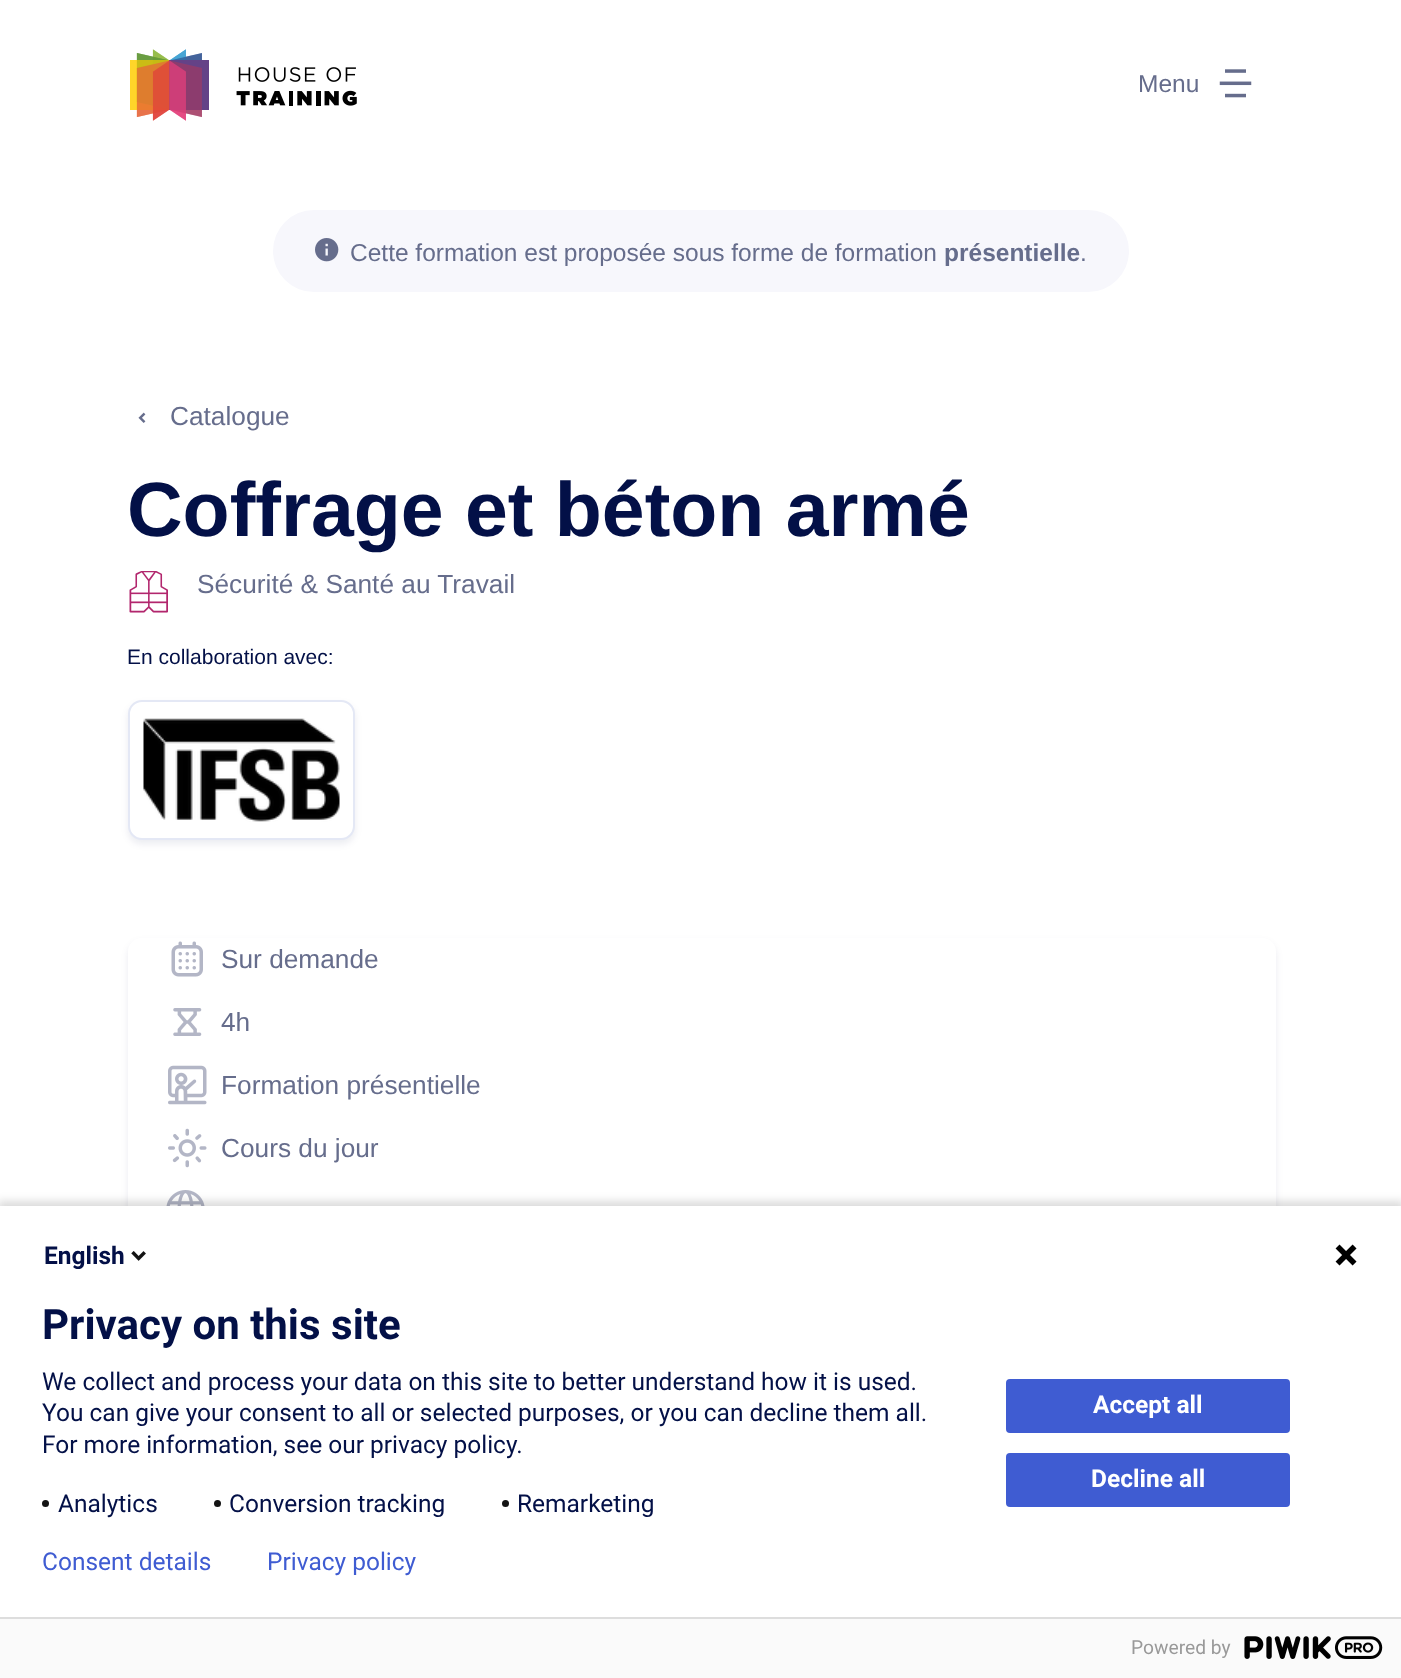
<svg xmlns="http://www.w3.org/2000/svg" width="1401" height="1678">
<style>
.a{font:24.5px Liberation Sans;fill:#666d8c}
.b{font:bold 24.5px Liberation Sans;fill:#666d8c}
.c{font:26.25px Liberation Sans;fill:#666d8c}
.d{font:bold 77px Liberation Sans;fill:#031047}
.e{font:21px Liberation Sans;fill:#031047}
.f{font:bold 24.5px Roboto;fill:#031047}
.g{font:bold 42px Roboto;fill:#031047}
.h{font:24.5px Roboto;fill:#031047}
.i{font:bold 24.5px Roboto;fill:#fff}
.j{font:24.5px Roboto;fill:#3f5cd2}
.k{font:19.25px Roboto;fill:#999}
</style>
<rect width="100%" height="100%" fill="#fff"/>
<image href="1.png" x="130" y="49" width="227" height="72"/>
<image href="2.png" x="1219" y="69" width="33" height="29"/>
<rect fill="#f7f7fc" x="273" y="210" width="856" height="82" rx="41"/>
<image href="3.png" x="315" y="238" width="24" height="24"/>
<image href="4.png" x="138" y="412" width="8" height="11"/>
<image href="5.png" x="129" y="571" width="39" height="42"/>
<rect fill="#03104714" filter="blur(3.5px)" x="128" y="704" width="227" height="140" rx="14"/>
<rect fill="#fff" stroke="#e4e8f5" stroke-width="2" x="129" y="701" width="225" height="138" rx="13"/>
<image href="6.png" x="143" y="718" width="197" height="104"/>
<rect fill="#03104714" filter="blur(3.5px)" x="128" y="942" width="1148" height="684" rx="14"/>
<rect fill="#fff" x="128" y="938" width="1148" height="684" rx="14"/>
<image href="7.png" x="171" y="941" width="32" height="36"/>
<image href="8.png" x="173" y="1008" width="29" height="28"/>
<image href="9.png" x="168" y="1065" width="39" height="40"/>
<image href="10.png" x="168" y="1128" width="39" height="40"/>
<image href="11.png" x="166" y="1190" width="39" height="16"/>
<path fill="#00000024" filter="blur(4.5px)" d="M-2 1201h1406v476H-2z"/>
<path fill="#fff" d="M0 1206h1401v411H0z"/>
<image href="12.png" x="131" y="1251" width="15" height="10"/>
<image href="13.png" x="1335" y="1244" width="22" height="22"/>
<circle fill="#131313" cx="45.5" cy="1503.5" r="3.5"/>
<circle fill="#131313" cx="217.5" cy="1503.5" r="3.5"/>
<circle fill="#131313" cx="505.5" cy="1503.5" r="3.5"/>
<rect fill="#3f5cd2" x="1006" y="1379" width="284" height="54" rx="4"/>
<rect fill="#3f5cd2" x="1006" y="1453" width="284" height="54" rx="4"/>
<path fill="#fafafa" d="M0 1619h1401v59H0z"/>
<path fill="#ddd" d="M0 1617h1401v2H0z"/>
<image href="14.png" x="1244" y="1636" width="139" height="23"/>
<text class="a" x="1138" y="92">Menu</text>
<text class="a" x="350" y="261">Cette formation est proposée sous forme de formation</text>
<text class="b" x="944" y="261">présentielle</text>
<text class="a" x="1080" y="261">.</text>
<text class="c" x="170" y="425">Catalogue</text>
<text class="d" x="127" y="536">Coffrage et béton armé</text>
<text class="c" x="197" y="593">Sécurité &amp; Santé au Travail</text>
<text class="e" x="127" y="664">En collaboration avec:</text>
<text class="c" x="221" y="968">Sur demande</text>
<text class="c" x="221" y="1031">4h</text>
<text class="c" x="221" y="1094">Formation présentielle</text>
<text class="c" x="221" y="1157">Cours du jour</text>
<text class="f" x="44" y="1264">English</text>
<text class="g" x="42" y="1339">Privacy on this site</text>
<text class="h" x="42" y="1390">We collect and process your data on this site to better understand how it is used.</text>
<text class="h" x="42" y="1421">You can give your consent to all or selected purposes, or you can decline them all.</text>
<text class="h" x="42" y="1453">For more information, see our privacy policy.</text>
<text class="h" x="58" y="1512">Analytics</text>
<text class="h" x="229" y="1512">Conversion tracking</text>
<text class="h" x="517" y="1512">Remarketing</text>
<text class="i" x="1093" y="1413">Accept all</text>
<text class="i" x="1091" y="1487">Decline all</text>
<text class="j" x="42" y="1570">Consent details</text>
<text class="j" x="267" y="1570">Privacy policy</text>
<text class="k" x="1131" y="1654">Powered by</text>
</svg>
